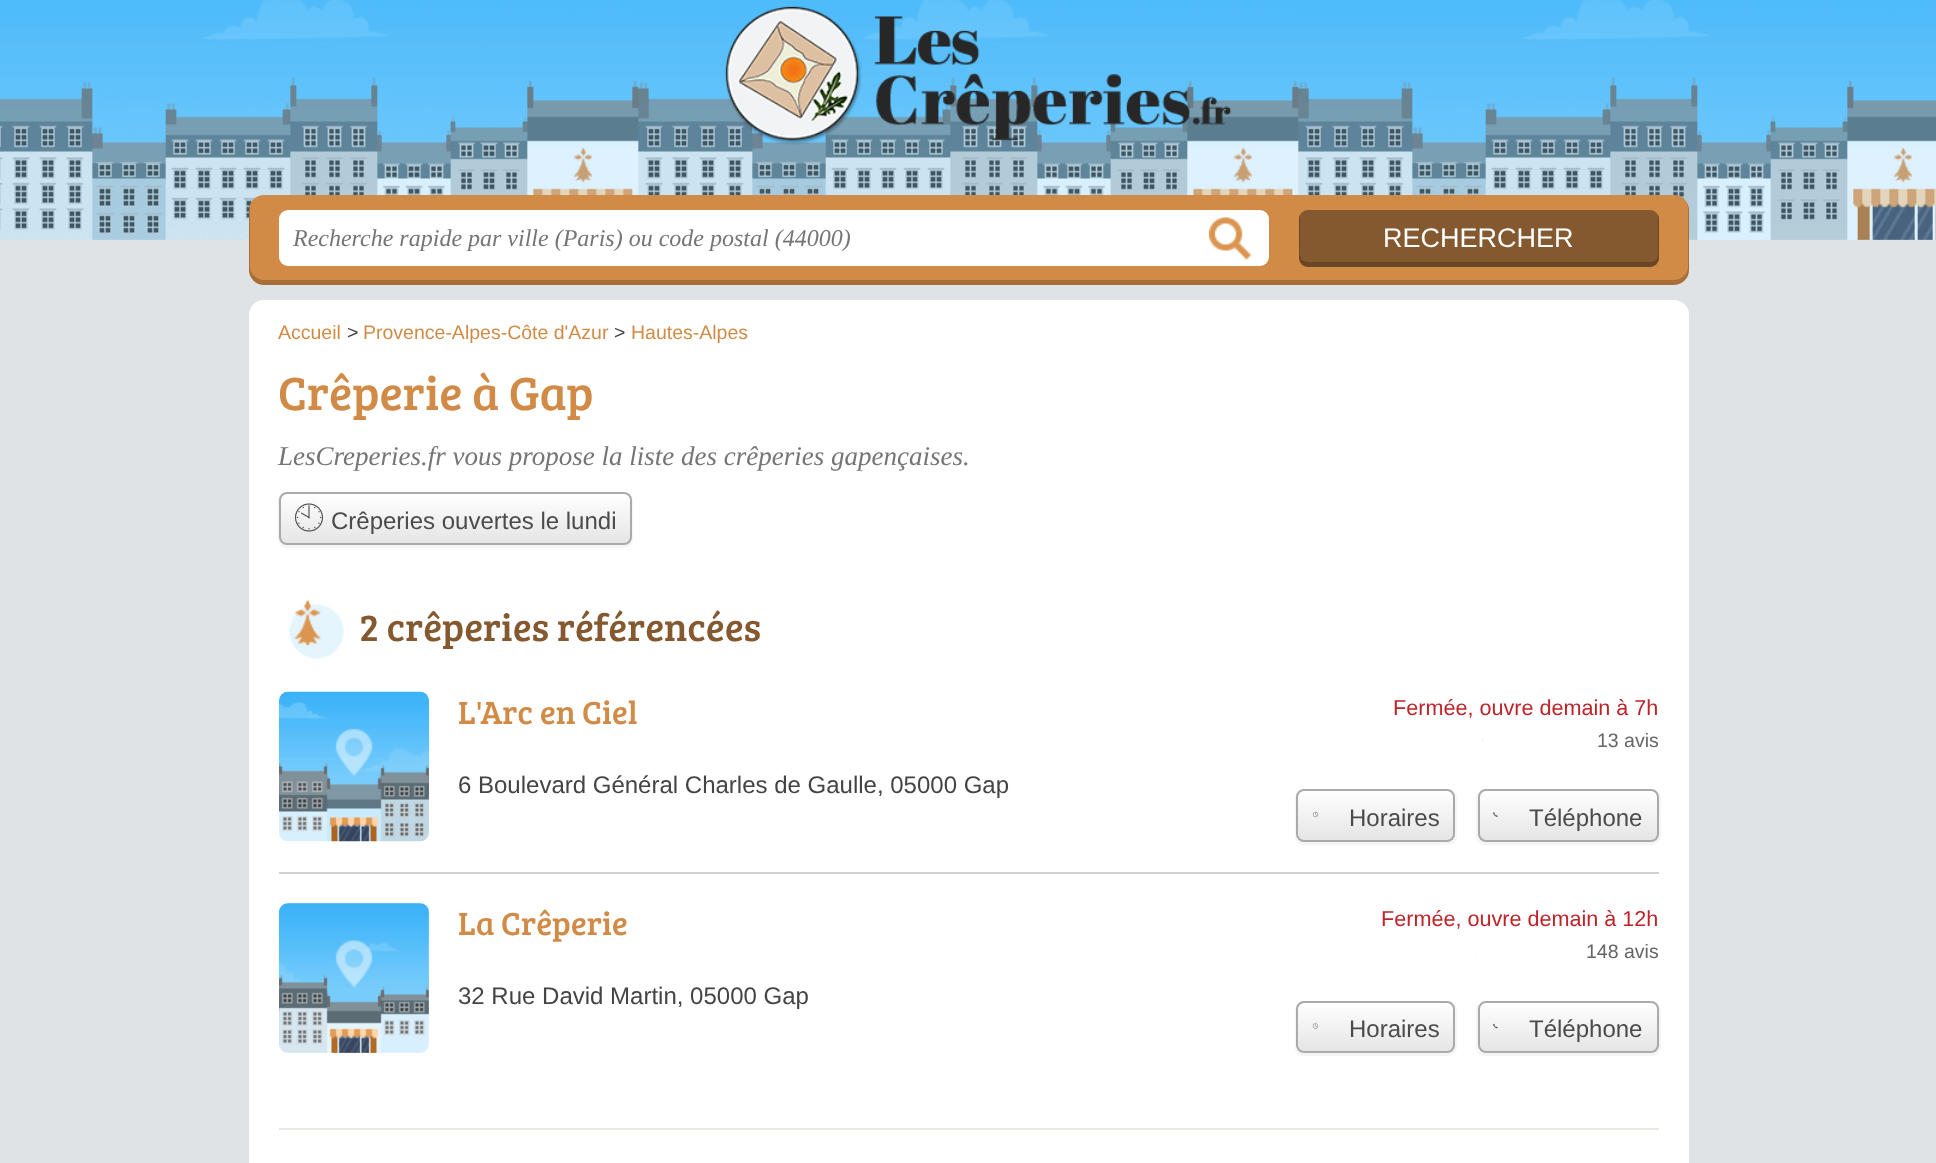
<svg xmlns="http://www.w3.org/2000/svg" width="1936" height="1163">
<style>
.a{font:italic 24px Liberation Serif;fill:#757575}
.b{font:27px Liberation Sans;fill:#fff}
.c{font:19.5px Liberation Sans;fill:#d18b46}
.d{font:19.5px Liberation Sans;fill:#444}
.e{font:48px Bree Serif;fill:#d18b46}
.f{font:italic 27px Liberation Serif;fill:#757575}
.g{font:24px Liberation Sans;fill:#4b4b4b}
.h{font:39px Bree Serif;fill:#84592f}
.i{font:33px Bree Serif;fill:#d18b46}
.j{font:21.6px Liberation Sans;fill:#be2329}
.k{font:19.5px Liberation Sans;fill:#666}
.l{font:24px Liberation Sans;fill:#444}
</style>
<defs>
<clipPath id="clip1"><rect x="279" y="492" width="353" height="53" rx="8"/></clipPath>
<linearGradient id="g1" gradientUnits="userSpaceOnUse" x1="455" y1="494" x2="455" y2="543"><stop offset="0" stop-color="#fff"/><stop offset="1" stop-color="#e5e5e5"/></linearGradient>
<clipPath id="clip2"><rect x="1296" y="789" width="159" height="53" rx="8"/></clipPath>
<linearGradient id="g2" gradientUnits="userSpaceOnUse" x1="1376" y1="791" x2="1376" y2="840"><stop offset="0" stop-color="#fff"/><stop offset="1" stop-color="#e5e5e5"/></linearGradient>
<clipPath id="clip3"><rect x="1478" y="789" width="181" height="53" rx="8"/></clipPath>
<linearGradient id="g3" gradientUnits="userSpaceOnUse" x1="1568" y1="791" x2="1568" y2="840"><stop offset="0" stop-color="#fff"/><stop offset="1" stop-color="#e5e5e5"/></linearGradient>
<clipPath id="clip4"><rect x="1296" y="1001" width="159" height="52" rx="8"/></clipPath>
<linearGradient id="g4" gradientUnits="userSpaceOnUse" x1="1376" y1="1002" x2="1376" y2="1052"><stop offset="0" stop-color="#fff"/><stop offset="1" stop-color="#e5e5e5"/></linearGradient>
<clipPath id="clip5"><rect x="1478" y="1001" width="181" height="52" rx="8"/></clipPath>
<linearGradient id="g5" gradientUnits="userSpaceOnUse" x1="1568" y1="1002" x2="1568" y2="1052"><stop offset="0" stop-color="#fff"/><stop offset="1" stop-color="#e5e5e5"/></linearGradient>
</defs>
<rect width="100%" height="100%" fill="#e0e3e6"/>
<image href="1.png" x="0" y="0" width="1936" height="240"/>
<image href="2.png" x="725" y="6" width="507" height="139"/>
<rect fill="#d18b46" x="249" y="195" width="1440" height="90" rx="15"/>
<path fill="#00000033" d="M251 203c-1 2-2 4-2 7v60c0 8 7 15 15 15h1410c8 0 15-7 15-15v-60c0-3-1-5-2-7l1 4v60c0 7-7 13-14 13h-1410c-7 0-14-6-14-13v-60z"/>
<rect fill="#fff" x="279" y="210" width="990" height="56" rx="9"/>
<image href="3.png" x="1209" y="217" width="43" height="43"/>
<rect fill="#84592f" x="1299" y="210" width="360" height="57" rx="9"/>
<path fill="#00000033" d="M1300 215c-1 1-1 2-1 4v39c0 5 4 9 9 9h342c5 0 9-4 9-9v-39c0-2 0-3-1-4v27c0 7 3 20-8 20h-342c-11 0-8-13-8-20z"/>
<path fill="#fff" d="M264 300h1410c8.5 0 15 6.5 15 15v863h-1440v-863c0-8.5 6.5-15 15-15z"/>
<path fill="#f5f5f5" d="M627 492c3 1 5 4 5 7v38c0 4-4 7-8 7h-338c-4 0-7-3-7-7v-38c0-2 1-3 2-4c-2 1-3 4-3 6v38c0 5 4 9 9 9h337c5 0 9-4 9-9v-38c0-4-3-7-6-9z"/>
<g clip-path="url(#clip1)">
<path fill="url(#g1)" d="M279 494h353v49H279z"/>
</g>
<rect fill="none" stroke="#aaa" stroke-width="2" x="280" y="493" width="351" height="51" rx="7"/>
<image href="4.png" x="294" y="503" width="30" height="29"/>
<path fill="#eae9df" d="M279 1128h1380v2H279z"/>
<image href="5.png" x="289" y="599" width="55" height="60"/>
<path fill="#d1d1d1" d="M279 872h1380v2H279z"/>
<image href="6.png" x="278" y="691" width="152" height="151"/>
<image href="7.png" x="1482" y="740" width="1" height="1"/>
<path fill="#f5f5f5" d="M1457 798c0-5-4-9-9-9c4 0 7 3 7 7v38c0 4-3 8-7 8h-145c-4 0-7-4-7-8v-38c0-2 1-3 2-4c-2 1-3 4-3 6v38c0 5 4 9 9 9h144c5 0 9-4 9-9z"/>
<g clip-path="url(#clip2)">
<path fill="url(#g2)" d="M1296 791h159v49H1296z"/>
</g>
<rect fill="none" stroke="#aaa" stroke-width="2" x="1297" y="790" width="157" height="51" rx="7"/>
<image href="8.png" x="1312" y="811" width="7" height="7"/>
<path fill="#f5f5f5" d="M1661 798c0-5-4-9-9-9c4 0 7 3 7 7v38c0 4-3 8-7 8h-167c-4 0-7-4-7-8v-38c0-3 1-6 4-7c-3 2-6 5-6 9v38c0 5 4 9 9 9h167c5 0 9-4 9-9z"/>
<g clip-path="url(#clip3)">
<path fill="url(#g3)" d="M1478 791h181v49H1478z"/>
</g>
<rect fill="none" stroke="#aaa" stroke-width="2" x="1479" y="790" width="179" height="51" rx="7"/>
<image href="9.png" x="1493" y="812" width="5" height="5"/>
<image href="10.png" x="279" y="903" width="150" height="150"/>
<path fill="#f0f0f0" d="M1476 952h1v1H1476z"/>
<path fill="#f5f5f5" d="M1297 1005c-1 1-2 3-2 5v37c0 5 4 9 9 9h144c5 0 9-4 9-9v-37c0-3-2-6-5-8c2 1 3 3 3 6v38c0 4-3 7-7 7h-145c-4 0-7-3-7-7v-38z"/>
<g clip-path="url(#clip4)">
<path fill="url(#g4)" d="M1296 1002h159v50H1296z"/>
</g>
<rect fill="none" stroke="#aaa" stroke-width="2" x="1297" y="1002" width="157" height="50" rx="7"/>
<image href="11.png" x="1312" y="1023" width="7" height="6"/>
<path fill="#f5f5f5" d="M1479 1003c-2 2-3 4-3 7v37c0 5 4 9 9 9h167c5 0 9-4 9-9v-37c0-3-2-6-5-8c2 1 3 3 3 6v38c0 4-3 7-7 7h-167c-4 0-7-3-7-7v-38c0-2 0-4 1-5z"/>
<g clip-path="url(#clip5)">
<path fill="url(#g5)" d="M1478 1002h181v50H1478z"/>
</g>
<rect fill="none" stroke="#aaa" stroke-width="2" x="1479" y="1002" width="179" height="50" rx="7"/>
<image href="12.png" x="1493" y="1023" width="5" height="6"/>
<text class="a" x="293" y="246">Recherche rapide par ville (Paris) ou code postal (44000)</text>
<text class="b" x="1383" y="247">RECHERCHER</text>
<text class="c" x="278" y="339">Accueil</text>
<text class="d" x="347" y="339">&gt;</text>
<text class="c" x="363" y="339">Provence-Alpes-Côte d'Azur</text>
<text class="d" x="614" y="339">&gt;</text>
<text class="c" x="631" y="339">Hautes-Alpes</text>
<text class="e" x="278" y="410">Crêperie à Gap</text>
<text class="f" x="278" y="465">LesCreperies.fr vous propose la liste des crêperies gapençaises.</text>
<text class="g" x="331" y="529">Crêperies ouvertes le lundi</text>
<text class="h" x="359" y="641">2 crêperies référencées</text>
<text class="i" x="458" y="724">L'Arc en Ciel</text>
<text class="j" x="1393" y="715">Fermée, ouvre demain à 7h</text>
<text class="k" x="1597" y="747">13 avis</text>
<text class="l" x="458" y="793">6 Boulevard Général Charles de Gaulle, 05000 Gap</text>
<text class="g" x="1349" y="826">Horaires</text>
<text class="g" x="1529" y="826">Téléphone</text>
<text class="i" x="458" y="935">La Crêperie</text>
<text class="j" x="1381" y="926">Fermée, ouvre demain à 12h</text>
<text class="k" x="1586" y="958">148 avis</text>
<text class="l" x="458" y="1004">32 Rue David Martin, 05000 Gap</text>
<text class="g" x="1349" y="1037">Horaires</text>
<text class="g" x="1529" y="1037">Téléphone</text>
</svg>
